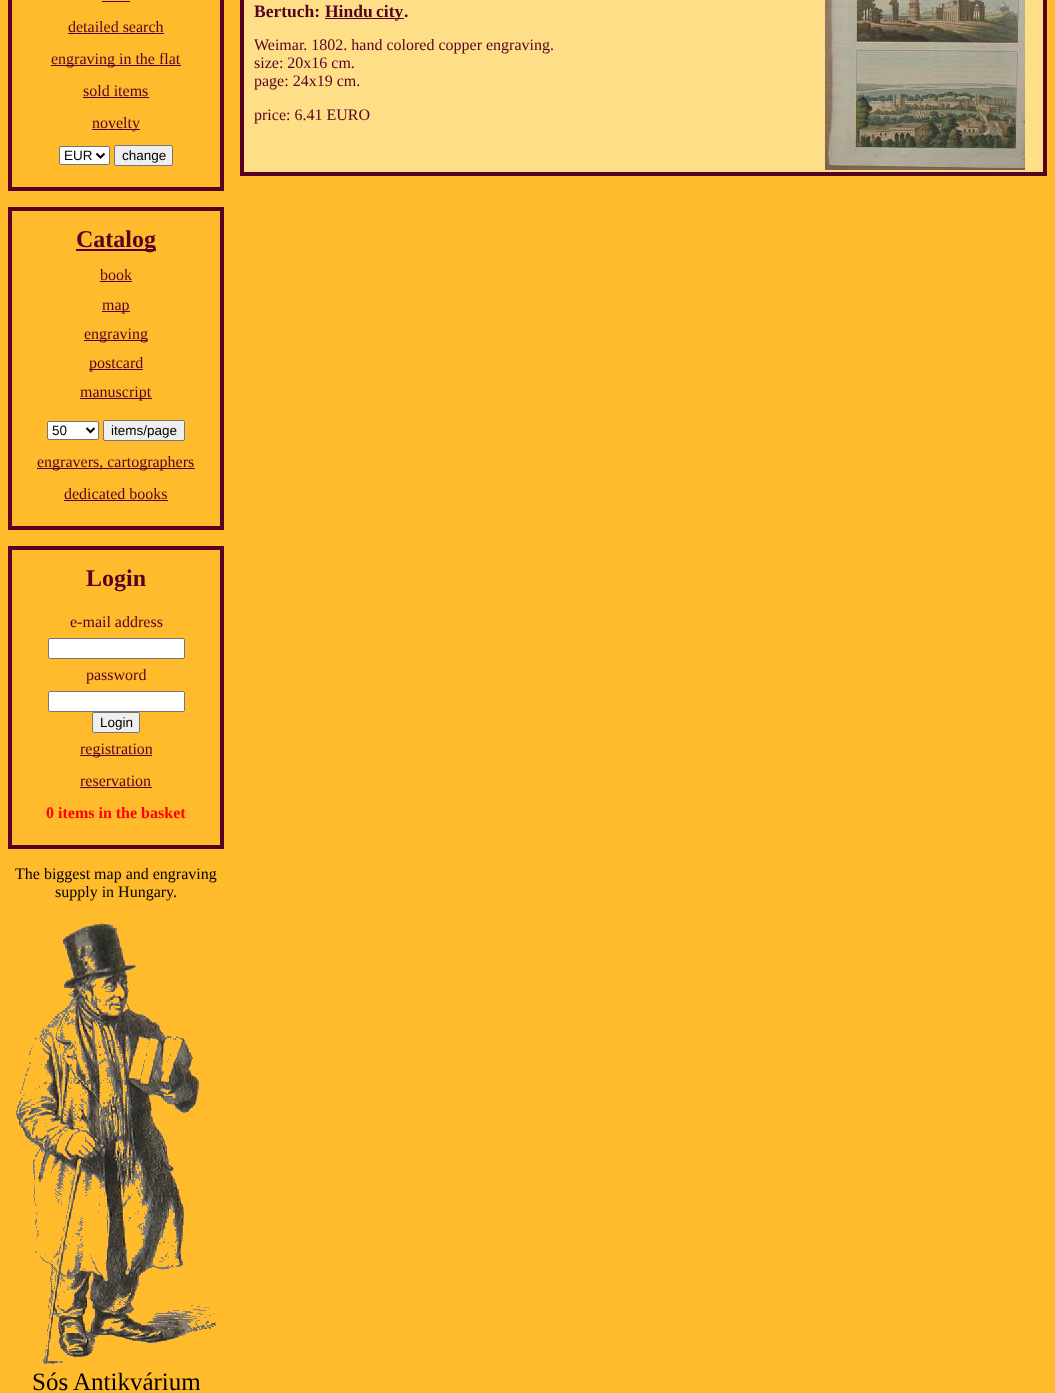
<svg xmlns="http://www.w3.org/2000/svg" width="1055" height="1393">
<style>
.a{font:16px Liberation Serif;fill:#560323}
.b{font:13.5px Liberation Sans;fill:#000}
.c{font:bold 24px Liberation Serif;fill:#560323}
.d{font:bold 16px Liberation Serif;fill:#f00}
.e{font:16px Liberation Serif;fill:#000}
.f{font:25px Liberation Serif;fill:#000}
.g{font:bold 17.5px Liberation Serif;fill:#560323}
</style>
<rect width="100%" height="100%" fill="#ffbb2b"/>
<path fill="none" stroke="#560323" stroke-width="4" d="M10 -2h212v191H10z"/>
<path fill="#560323" d="M102 1h28v1H102z"/>
<path fill="#560323" d="M68 33h96v1H68z"/>
<path fill="#560323" d="M51 65h130v1H51z"/>
<path fill="#560323" d="M83 97h66v1H83z"/>
<path fill="#560323" d="M92 129h48v1H92z"/>
<rect fill="#fff" stroke="#767676" x="59.5" y="146.5" width="50" height="18" rx="1.5"/>
<path fill="none" stroke="#000" stroke-width="2" d="M96.5 153.5l4 4l4-4"/>
<rect fill="#efefef" stroke="#767676" x="114.5" y="145.5" width="58" height="20" rx="1.5"/>
<path fill="none" stroke="#560323" stroke-width="4" d="M10 209h212v319H10z"/>
<path fill="#560323" d="M76 249h80v2H76z"/>
<path fill="#560323" d="M100 281h32v1H100z"/>
<path fill="#560323" d="M102 311h28v1H102z"/>
<path fill="#560323" d="M84 340h64v1H84z"/>
<path fill="#560323" d="M89 369h54v1H89z"/>
<path fill="#560323" d="M80 398h72v1H80z"/>
<rect fill="#fff" stroke="#767676" x="47.5" y="421.5" width="51" height="18" rx="1.5"/>
<path fill="none" stroke="#000" stroke-width="2" d="M86.5 428l4 4l4-4"/>
<rect fill="#efefef" stroke="#767676" x="103.5" y="420.5" width="81" height="20" rx="1.5"/>
<path fill="#560323" d="M37 468h158v1H37z"/>
<path fill="#560323" d="M64 500h104v1H64z"/>
<path fill="none" stroke="#560323" stroke-width="4" d="M10 548h212v299H10z"/>
<rect fill="#fff" stroke="#767676" x="48.5" y="638.5" width="136" height="20" rx="1.5"/>
<rect fill="#fff" stroke="#767676" x="48.5" y="691.5" width="136" height="20" rx="1.5"/>
<rect fill="#efefef" stroke="#767676" x="92.5" y="712.5" width="47" height="20" rx="1.5"/>
<path fill="#560323" d="M80 755h72v1H80z"/>
<path fill="#560323" d="M80 787h72v1H80z"/>
<image href="1.png" x="16" y="923" width="200" height="441"/>
<path fill="#ffde88" stroke="#560323" stroke-width="4" d="M242 -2h803v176H242z"/>
<path fill="#560323" d="M325 18h79v1H325z"/>
<image href="2.png" x="825" y="0" width="200" height="170"/>
<text class="a" x="68" y="32">detailed search</text>
<text class="a" x="51" y="64">engraving in the flat</text>
<text class="a" x="83" y="96">sold items</text>
<text class="a" x="92" y="128">novelty</text>
<text class="b" x="64" y="160">EUR</text>
<text class="b" x="122" y="160">change</text>
<text class="c" x="76" y="247">Catalog</text>
<text class="a" x="100" y="280">book</text>
<text class="a" x="102" y="310">map</text>
<text class="a" x="84" y="339">engraving</text>
<text class="a" x="89" y="368">postcard</text>
<text class="a" x="80" y="397">manuscript</text>
<text class="b" x="52" y="435">50</text>
<text class="b" x="111" y="435">items/page</text>
<text class="a" x="37" y="467">engravers, cartographers</text>
<text class="a" x="64" y="499">dedicated books</text>
<text class="c" x="86" y="586">Login</text>
<text class="a" x="70" y="627">e-mail address</text>
<text class="a" x="86" y="680">password</text>
<text class="b" x="100" y="727">Login</text>
<text class="a" x="80" y="754">registration</text>
<text class="a" x="80" y="786">reservation</text>
<text class="d" x="46" y="818">0 items in the basket</text>
<text class="e" x="15" y="879">The biggest map and engraving</text>
<text class="e" x="55" y="897">supply in Hungary.</text>
<text class="f" x="32" y="1390">Sós Antikvárium</text>
<text class="g" x="254" y="17">Bertuch:</text>
<text class="g" x="325" y="17" word-spacing="-1">Hindu city</text>
<text class="g" x="404" y="17">.</text>
<text class="a" x="254" y="50">Weimar. 1802. hand colored copper engraving.</text>
<text class="a" x="254" y="68">size: 20x16 cm.</text>
<text class="a" x="254" y="86">page: 24x19 cm.</text>
<text class="a" x="254" y="120">price: 6.41 EURO</text>
</svg>
